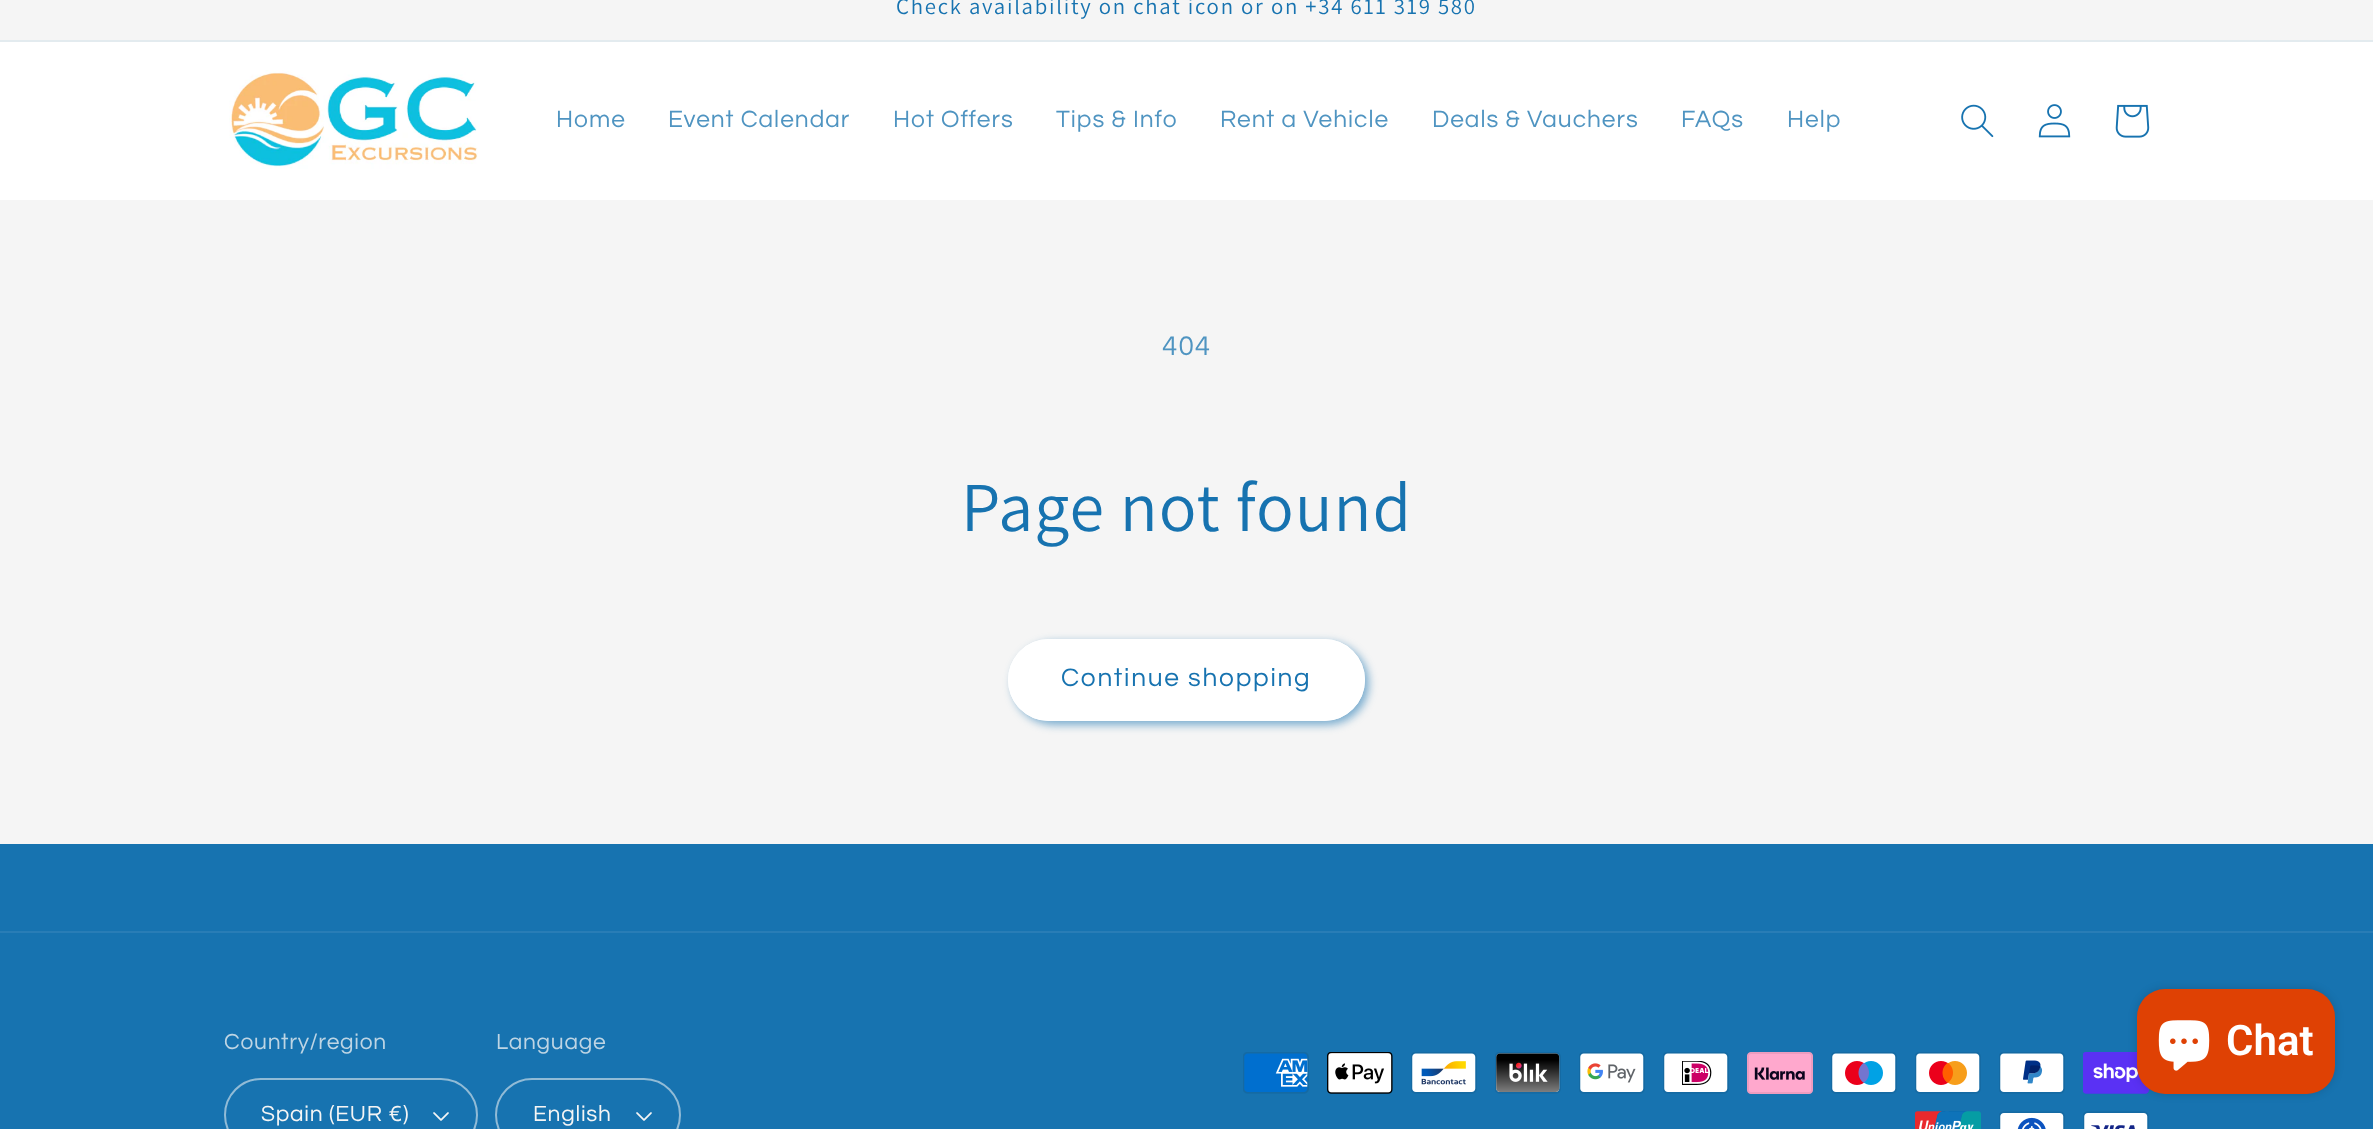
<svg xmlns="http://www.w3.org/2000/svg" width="2373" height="1129">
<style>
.a{font:22.75px Assistant;letter-spacing:1.75px;fill:#1773b0}
.b{font:24.5px Questrial;letter-spacing:1px;fill:#4f94c1}
.c{font:28px Questrial;letter-spacing:1px;fill:#4f94c1}
.d{font:70px Assistant;letter-spacing:1px;fill:#1773b0}
.e{font:26.25px Questrial;letter-spacing:1.75px;fill:#1773b0}
.f{font:22.75px Questrial;letter-spacing:0.75px;fill:#bed5e4}
.g{font:22.75px Questrial;letter-spacing:0.75px;fill:#f5f5f5}
.h{font:600 42px Roboto;fill:#fff}
</style>
<rect width="100%" height="100%" fill="#f5f5f5"/>
<path fill="#e3ebef" d="M0 40h2373v2H0z"/>
<path fill="#fff" d="M0 42h2373v158H0z"/>
<image href="1.png" x="229" y="70" width="249" height="99"/>
<image href="2.png" x="1961" y="104" width="33" height="34"/>
<image href="3.png" x="2038" y="104" width="33" height="34"/>
<image href="4.png" x="2115" y="104" width="35" height="34"/>
<rect fill="#1773b08c" filter="blur(4.5px)" x="1012" y="642" width="357" height="83" rx="41.5"/>
<rect fill="#fff" x="1008" y="639" width="357" height="82" rx="41"/>
<rect fill="none" stroke="#fff" stroke-width="2" x="1009" y="640" width="355" height="80" rx="40"/>
<path fill="#1773b0" d="M0 844h2373v285H0z"/>
<path fill="#297db6" d="M0 931h2373v2H0z"/>
<image href="5.png" x="433" y="1112" width="16" height="9"/>
<rect fill="none" stroke="#91bbd6" stroke-width="2" x="225" y="1079" width="252" height="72" rx="36"/>
<image href="5.png" x="636" y="1112" width="16" height="9"/>
<rect fill="none" stroke="#91bbd6" stroke-width="2" x="496" y="1079" width="184" height="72" rx="36"/>
<image href="6.png" x="1243" y="1052" width="66" height="42"/>
<image href="7.png" x="1327" y="1052" width="66" height="42"/>
<image href="8.png" x="1411" y="1052" width="66" height="42"/>
<image href="9.png" x="1495" y="1052" width="66" height="42"/>
<image href="10.png" x="1579" y="1052" width="66" height="42"/>
<image href="11.png" x="1663" y="1052" width="66" height="42"/>
<image href="12.png" x="1747" y="1052" width="66" height="42"/>
<image href="13.png" x="1831" y="1052" width="66" height="42"/>
<image href="14.png" x="1915" y="1052" width="66" height="42"/>
<image href="15.png" x="1999" y="1052" width="66" height="42"/>
<image href="16.png" x="2083" y="1052" width="66" height="42"/>
<image href="17.png" x="1915" y="1111" width="66" height="18"/>
<image href="18.png" x="1999" y="1111" width="66" height="18"/>
<image href="19.png" x="2083" y="1111" width="66" height="18"/>
<rect fill="#00000026" filter="blur(4.5px)" x="2137" y="989" width="198" height="105" rx="28"/>
<rect fill="#df4104" x="2137" y="989" width="198" height="105" rx="28"/>
<image href="20.png" x="2158" y="1020" width="52" height="51"/>
<text class="a" x="896" y="14">Check availability on chat icon or on +34 611 319 580</text>
<text class="b" x="556" y="127">Home</text>
<text class="b" x="668" y="127">Event Calendar</text>
<text class="b" x="893" y="127">Hot Offers</text>
<text class="b" x="1056" y="127">Tips &amp; Info</text>
<text class="b" x="1220" y="127">Rent a Vehicle</text>
<text class="b" x="1432" y="127">Deals &amp; Vauchers</text>
<text class="b" x="1681" y="127">FAQs</text>
<text class="b" x="1787" y="127">Help</text>
<text class="c" x="1162" y="355">404</text>
<text class="d" x="961" y="531">Page not found</text>
<text class="e" x="1061" y="686">Continue shopping</text>
<text class="f" x="224" y="1049">Country/region</text>
<text class="g" x="261" y="1121">Spain (EUR €)</text>
<text class="f" x="496" y="1049">Language</text>
<text class="g" x="533" y="1121">English</text>
<text class="h" x="2226" y="1055">Chat</text>
</svg>
